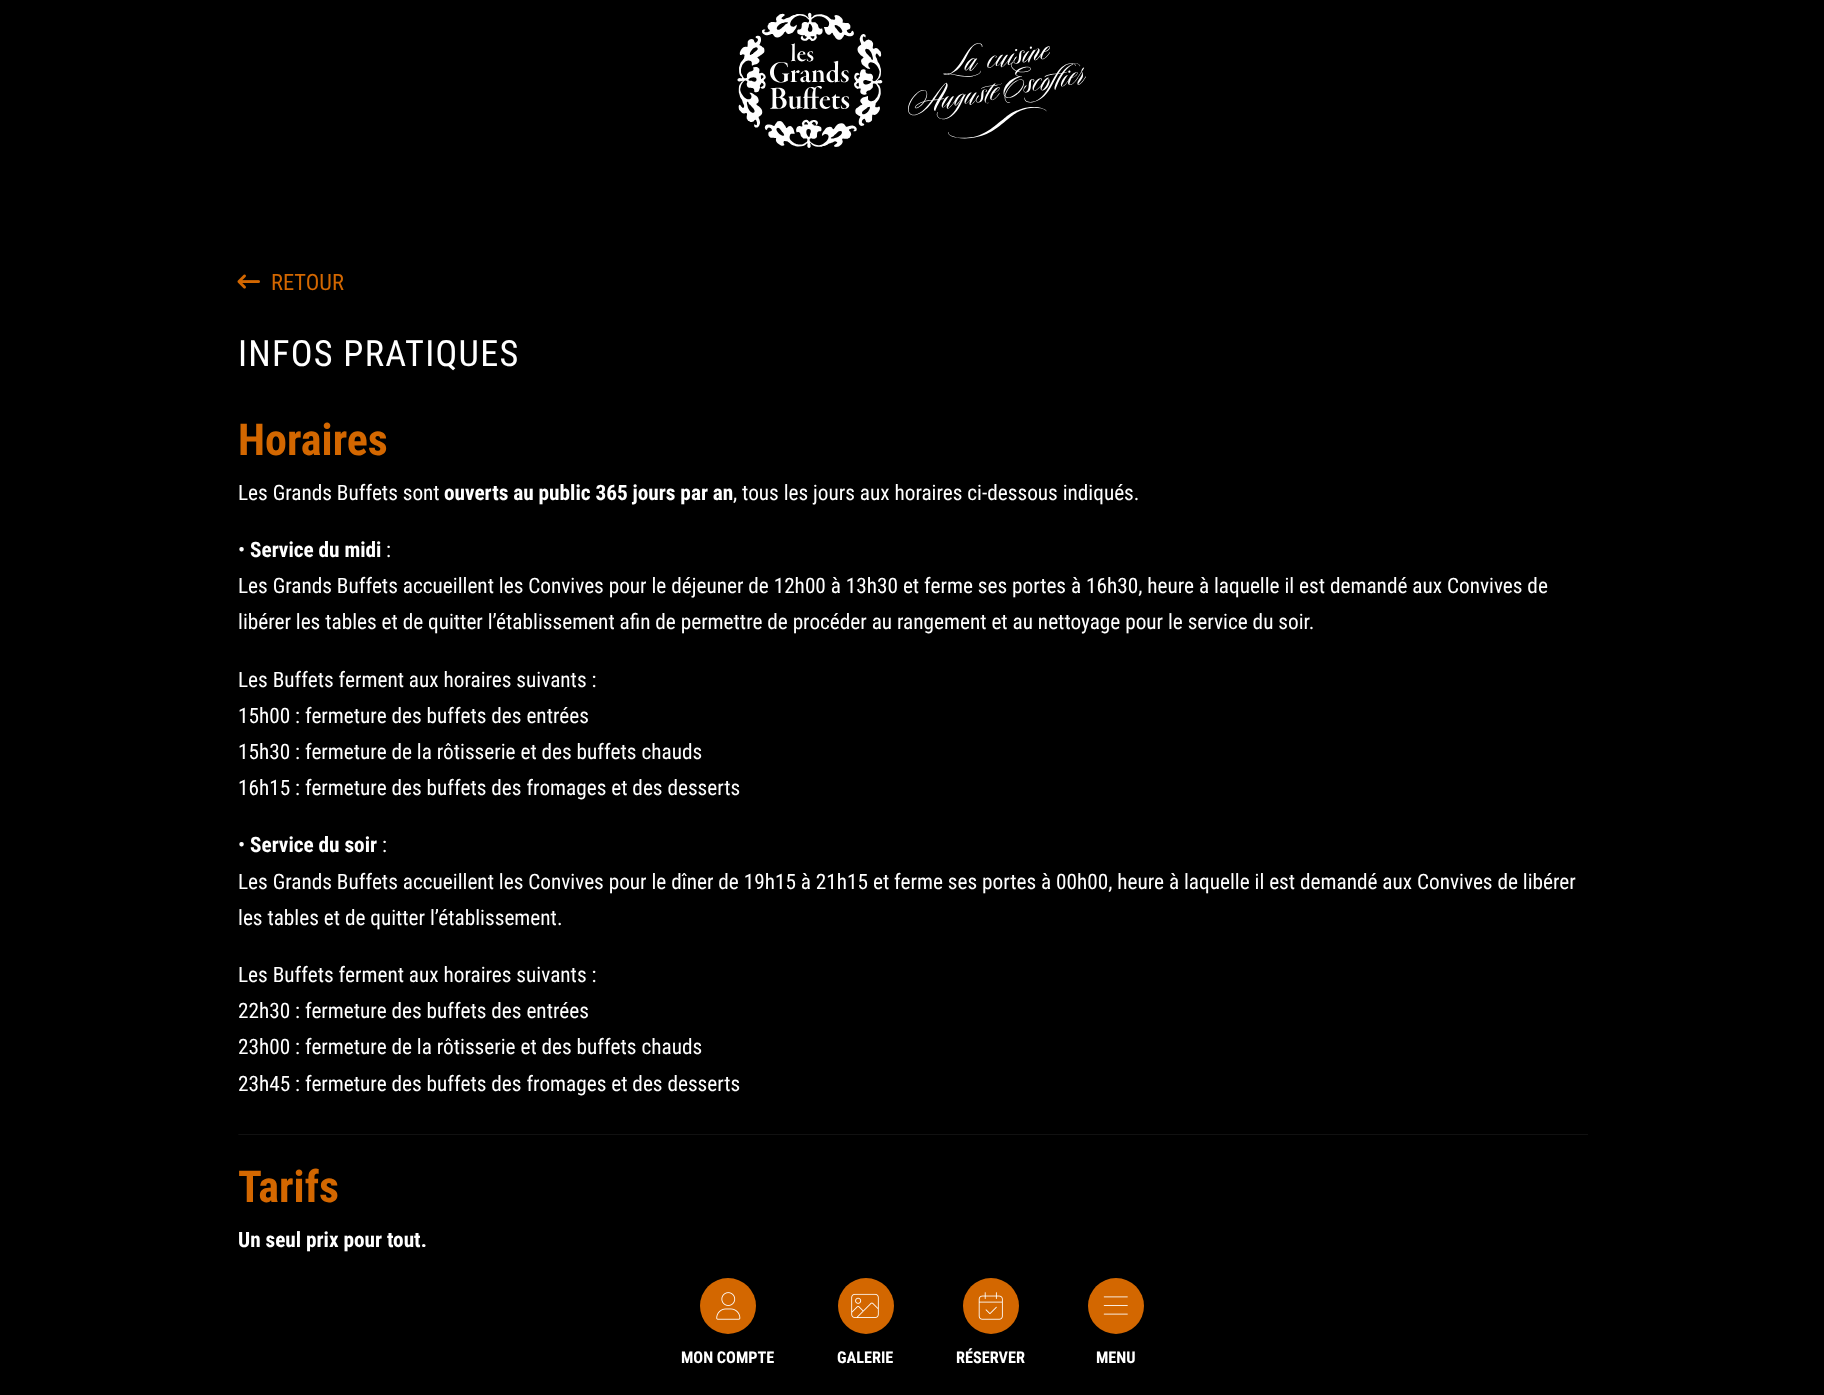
<svg xmlns="http://www.w3.org/2000/svg" width="1824" height="1395">
<style>
.a{font:22.5px Roboto Condensed;fill:#d36700}
.b{font:36.25px Roboto Condensed;letter-spacing:1.25px;fill:#fff}
.c{font:bold 44px Roboto Condensed;fill:#d36700}
.d{font:21.25px Roboto Condensed;fill:#fff}
.e{font:bold 21.25px Roboto Condensed;fill:#fff}
.f{font:bold 16.25px Roboto Condensed;fill:#fff}
</style>
<rect width="100%" height="100%" fill="#000"/>
<image href="1.png" x="737" y="12" width="349" height="136"/>
<image href="2.png" x="237" y="274" width="23" height="15"/>
<path fill="#111" d="M238 1134h1350v1H238z"/>
<path fill="#0b0b0b" d="M238 1134h1v1H238z"/>
<circle fill="#d36700" cx="728" cy="1306" r="28"/>
<image href="3.png" x="716" y="1292" width="25" height="28"/>
<circle fill="#d36700" cx="866" cy="1306" r="28"/>
<image href="4.png" x="851" y="1293" width="28" height="25"/>
<circle fill="#d36700" cx="991" cy="1306" r="28"/>
<image href="5.png" x="978" y="1292" width="25" height="28"/>
<circle fill="#d36700" cx="1116" cy="1306" r="28"/>
<image href="6.png" x="1103" y="1296" width="25" height="19"/>
<text class="a" x="271" y="290">RETOUR</text>
<text class="b" x="238" y="366">INFOS PRATIQUES</text>
<text class="c" x="238" y="455">Horaires</text>
<text class="d" x="238" y="500">Les Grands Buffets sont</text>
<text class="e" x="444" y="500">ouverts au public 365 jours par an</text>
<text class="d" x="733" y="500">, tous les jours aux horaires ci-dessous indiqués.</text>
<text class="d" x="238" y="557">•</text>
<text class="e" x="250" y="557">Service du midi</text>
<text class="d" x="386" y="557">:</text>
<text class="d" x="238" y="593">Les Grands Buffets accueillent les Convives pour le déjeuner de 12h00 à 13h30 et ferme ses portes à 16h30, heure à laquelle il est demandé aux Convives de</text>
<text class="d" x="238" y="629">libérer les tables et de quitter l’établissement afin de permettre de procéder au rangement et au nettoyage pour le service du soir.</text>
<text class="d" x="238" y="687">Les Buffets ferment aux horaires suivants :</text>
<text class="d" x="238" y="723">15h00 : fermeture des buffets des entrées</text>
<text class="d" x="238" y="759">15h30 : fermeture de la rôtisserie et des buffets chauds</text>
<text class="d" x="238" y="795">16h15 : fermeture des buffets des fromages et des desserts</text>
<text class="d" x="238" y="852">•</text>
<text class="e" x="250" y="852">Service du soir</text>
<text class="d" x="382" y="852">:</text>
<text class="d" x="238" y="889">Les Grands Buffets accueillent les Convives pour le dîner de 19h15 à 21h15 et ferme ses portes à 00h00, heure à laquelle il est demandé aux Convives de libérer</text>
<text class="d" x="238" y="925">les tables et de quitter l’établissement.</text>
<text class="d" x="238" y="982">Les Buffets ferment aux horaires suivants :</text>
<text class="d" x="238" y="1018">22h30 : fermeture des buffets des entrées</text>
<text class="d" x="238" y="1054">23h00 : fermeture de la rôtisserie et des buffets chauds</text>
<text class="d" x="238" y="1091">23h45 : fermeture des buffets des fromages et des desserts</text>
<text class="c" x="238" y="1202">Tarifs</text>
<text class="e" x="238" y="1247">Un seul prix pour tout.</text>
<text class="f" x="681" y="1363">MON COMPTE</text>
<text class="f" x="837" y="1363">GALERIE</text>
<text class="f" x="956" y="1363">RÉSERVER</text>
<text class="f" x="1096" y="1363">MENU</text>
</svg>
